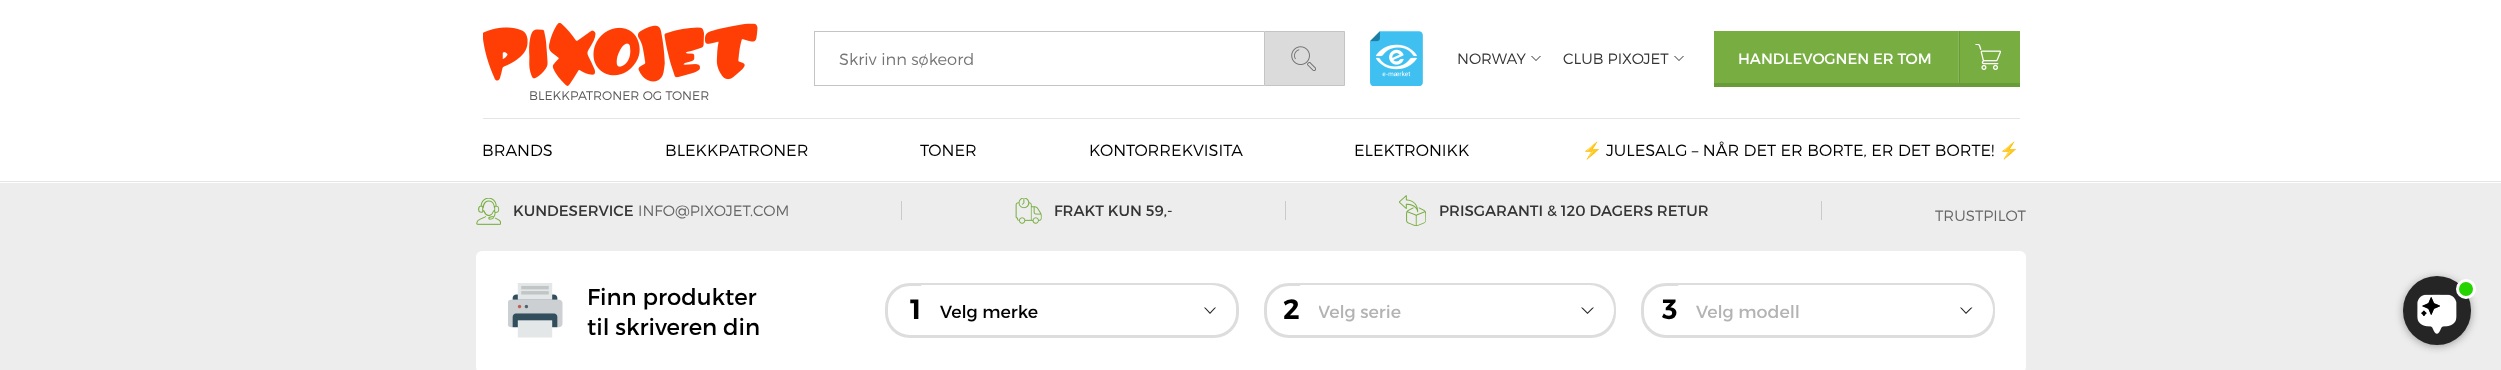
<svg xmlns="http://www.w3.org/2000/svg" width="2501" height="370">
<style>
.a{font:300 16.25px Montserrat;fill:#757575}
.b{font:300 15px Montserrat;fill:#353535}
.c{font:300 16.25px Montserrat;fill:#000}
.d{font:16.25px Noto Color Emoji;fill:#000}
.e{font:15px Montserrat;fill:#fff}
.f{font:300 12.5px Montserrat;fill:#595959}
.g{font:15px Montserrat;fill:#353535}
.h{font:300 15px Montserrat;fill:#666}
.i{font:22.75px Montserrat;fill:#000}
.j{font:600 28px Montserrat;fill:#000}
.k{font:17.5px Montserrat;fill:#000}
.l{font:17.5px Montserrat;fill:#b3b3b3}
</style>
<defs>
<clipPath id="clip1"><path d="M1319 299h339v26H1319z"/></clipPath>
</defs>
<rect width="100%" height="100%" fill="#fff"/>
<path fill="#e5e5e5" d="M0 181h2501v1H0z"/>
<path fill="#c4c4c4" d="M814 31h450v1H814z"/>
<path fill="#c4c4c4" d="M814 85h450v1H814z"/>
<path fill="#c4c4c4" d="M814 31h1v55H814z"/>
<path fill="#dbdbdb" stroke="#c4c4c4" d="M1264.5 31.5h80v54H1264.5z"/>
<image href="1.png" x="1291" y="46" width="25" height="25"/>
<path fill="#353535" d="M1531 56h10l-5 5z"/>
<path fill="#fff" d="M1531 55h10l-5 5z"/>
<path fill="#353535" d="M1674 56h10l-5 5z"/>
<path fill="#fff" d="M1674 55h10l-5 5z"/>
<path fill="#e5e5e5" d="M483 118h1537v1H483z"/>
<image href="2.png" x="483" y="23" width="275" height="63"/>
<image href="3.png" x="1370" y="31" width="53" height="55"/>
<path fill="#77ad41" d="M1714 31h306v52H1714z"/>
<path fill="#699b38" d="M1714 83h306v4H1714z"/>
<path fill="#87b758" d="M1958 31h1v52H1958z"/>
<path fill="#699b38" d="M1959 31h1v52H1959z"/>
<image href="4.png" x="1975" y="44" width="26" height="26"/>
<path fill="#ededed" d="M0 183h2501v187H0z"/>
<image href="5.png" x="476" y="198" width="25" height="27"/>
<path fill="#cacaca" d="M901 201h1v19H901z"/>
<image href="6.png" x="1015" y="198" width="27" height="26"/>
<path fill="#cacaca" d="M1285 201h1v19H1285z"/>
<image href="7.png" x="1399" y="195" width="27" height="31"/>
<path fill="#cacaca" d="M1821 201h1v19H1821z"/>
<rect fill="#fff" x="476" y="251" width="1550" height="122" rx="6"/>
<image href="8.png" x="508" y="283" width="55" height="55"/>
<rect fill="none" stroke="#ddd" stroke-width="3" x="886.5" y="284.5" width="351" height="52" rx="23.5"/>
<path fill="#fff" stroke="#fff" d="M921.5 285.5h289.5c13.5 0 24.5 11 24.5 24.5c0 13.5-11 24.5-24.5 24.5h-289.5z"/>
<path fill="#232323" d="M1204 307.5h12l-6 6.5z"/>
<path fill="#fff" d="M1204 306h12l-6 6.5z"/>
<rect fill="none" stroke="#ddd" stroke-width="3" x="1265.5" y="284.5" width="349" height="52" rx="23.5"/>
<path fill="#fff" stroke="#fff" d="M1300.5 285.5h288.5c13.5 0 24.5 11 24.5 24.5c0 13.5-11 24.5-24.5 24.5h-288.5z"/>
<path fill="#232323" d="M1581 307.5h13l-6.5 6.5z"/>
<path fill="#fff" d="M1581 306h13l-6.5 6.5z"/>
<rect fill="none" stroke="#ddd" stroke-width="3" x="1642.5" y="284.5" width="351" height="52" rx="23.5"/>
<path fill="#fff" stroke="#fff" d="M1678.5 285.5h289.5c13.5 0 24.5 11 24.5 24.5c0 13.5-11 24.5-24.5 24.5h-289.5z"/>
<path fill="#232323" d="M1960 307.5h12.5l-6.5 6.5z"/>
<path fill="#fff" d="M1960 306h12.5l-6.5 6.5z"/>
<rect fill="#00000059" filter="blur(4.5px)" x="2403" y="278" width="68" height="68" rx="34"/>
<rect fill="#252525" x="2403" y="276" width="68" height="69" rx="34"/>
<image href="9.png" x="2417" y="294" width="40" height="40"/>
<circle fill="#25d300" stroke="#fff" stroke-width="3" cx="2466" cy="289" r="8.5"/>
<text class="a" x="839" y="65">Skriv inn søkeord</text>
<text class="b" x="1457" y="64">NORWAY</text>
<text class="b" x="1563" y="64">CLUB PIXOJET</text>
<text class="c" x="482" y="156">BRANDS</text>
<text class="c" x="665" y="156">BLEKKPATRONER</text>
<text class="c" x="920" y="156">TONER</text>
<text class="c" x="1089" y="156">KONTORREKVISITA</text>
<text class="c" x="1354" y="156">ELEKTRONIKK</text>
<text class="d" x="1582" y="156">⚡</text>
<text class="c" x="1606" y="156">JULESALG – NÅR DET ER BORTE, ER DET BORTE!</text>
<text class="d" x="1999" y="156">⚡</text>
<text class="e" x="1738" y="64">HANDLEVOGNEN ER TOM</text>
<text class="f" x="529" y="100">BLEKKPATRONER OG TONER</text>
<text class="g" x="513" y="216">KUNDESERVICE</text>
<text class="h" x="638" y="216">INFO@PIXOJET.COM</text>
<text class="g" x="1054" y="216">FRAKT KUN 59,-</text>
<text class="g" x="1439" y="216">PRISGARANTI &amp; 120 DAGERS RETUR</text>
<text class="h" x="1935" y="221">TRUSTPILOT</text>
<text class="i" x="587" y="305">Finn produkter</text>
<text class="i" x="587" y="335">til skriveren din</text>
<text class="j" x="910" y="319">1</text>
<text class="k" x="940" y="318">Velg merke</text>
<text class="j" x="1283" y="319">2</text>
<g clip-path="url(#clip1)">
<text class="l" x="1318" y="318">Velg serie</text>
</g>
<text class="j" x="1662" y="319">3</text>
<text class="l" x="1696" y="318">Velg modell</text>
</svg>
